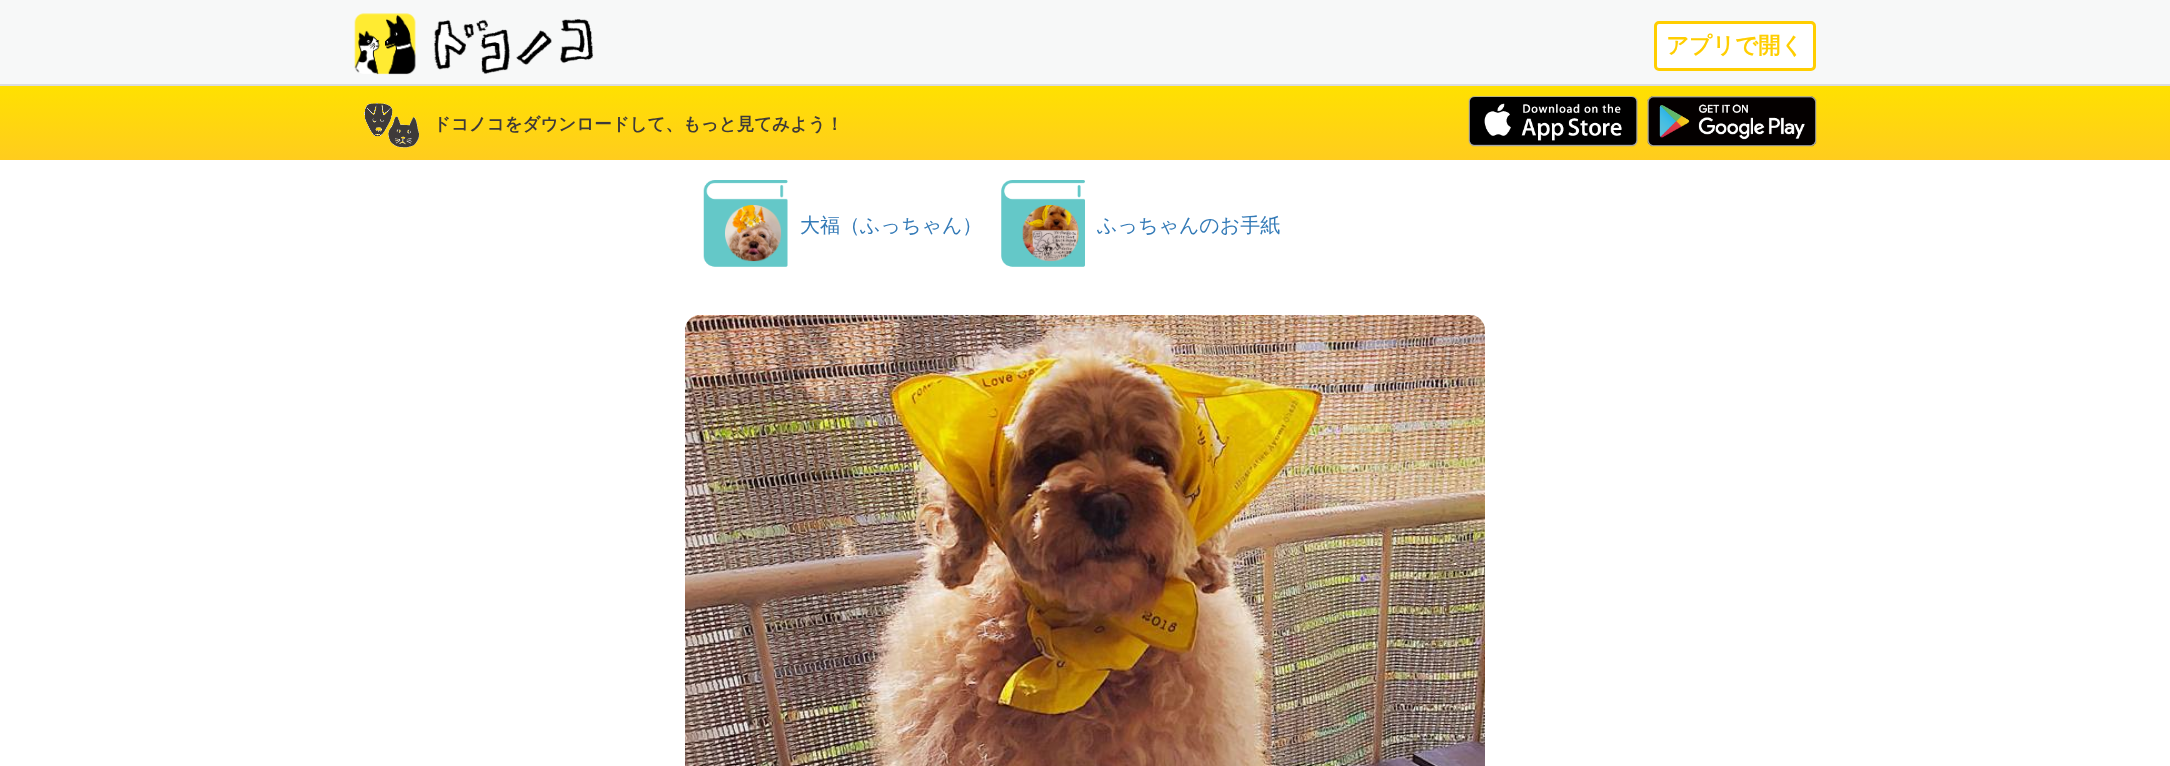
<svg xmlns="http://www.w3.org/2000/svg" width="2170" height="766">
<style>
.a{font:bold 22.5px WenQuanYi Zen Hei;fill:#ffce00}
.b{font:bold 17.5px WenQuanYi Zen Hei;fill:#3e3a39}
.c{font:500 20px WenQuanYi Zen Hei;fill:#337ab7}
</style>
<defs>
<linearGradient id="g1" gradientUnits="userSpaceOnUse" x1="0" y1="86" x2="0" y2="160"><stop offset="0" stop-color="#ffe100"/><stop offset="1" stop-color="#ffcc1e"/></linearGradient>
</defs>
<rect width="100%" height="100%" fill="#fff"/>
<path fill="#f7f8f8" d="M0 0h2170v84H0z"/>
<path fill="#dcdddd" d="M0 84h2170v2H0z"/>
<image href="1.png" x="354" y="13" width="62" height="62"/>
<image href="2.png" x="434" y="19" width="160" height="55"/>
<rect fill="#fff" stroke="#ffce00" stroke-width="3" x="1655.5" y="22.5" width="159" height="47" rx="3.5"/>
<path fill="url(#g1)" d="M0 86h2170v74H0z"/>
<image href="3.png" x="364" y="103" width="56" height="45"/>
<image href="4.png" x="1468" y="96" width="170" height="51"/>
<image href="5.png" x="1647" y="96" width="170" height="51"/>
<image href="6.png" x="703" y="180" width="85" height="87"/>
<image href="7.png" x="725" y="205" width="57" height="57"/>
<image href="8.png" x="1001" y="180" width="84" height="87"/>
<image href="9.png" x="1022" y="205" width="57" height="57"/>
<image href="10.png" x="685" y="315" width="800" height="451"/>
<text class="a" x="1666" y="53">アプリで開く</text>
<text class="b" x="433" y="130">ドコノコをダウンロードして、もっと見てみよう！</text>
<text class="c" x="800" y="232">大福（ふっちゃん）</text>
<text class="c" x="1097" y="232">ふっちゃんのお手紙</text>
</svg>
